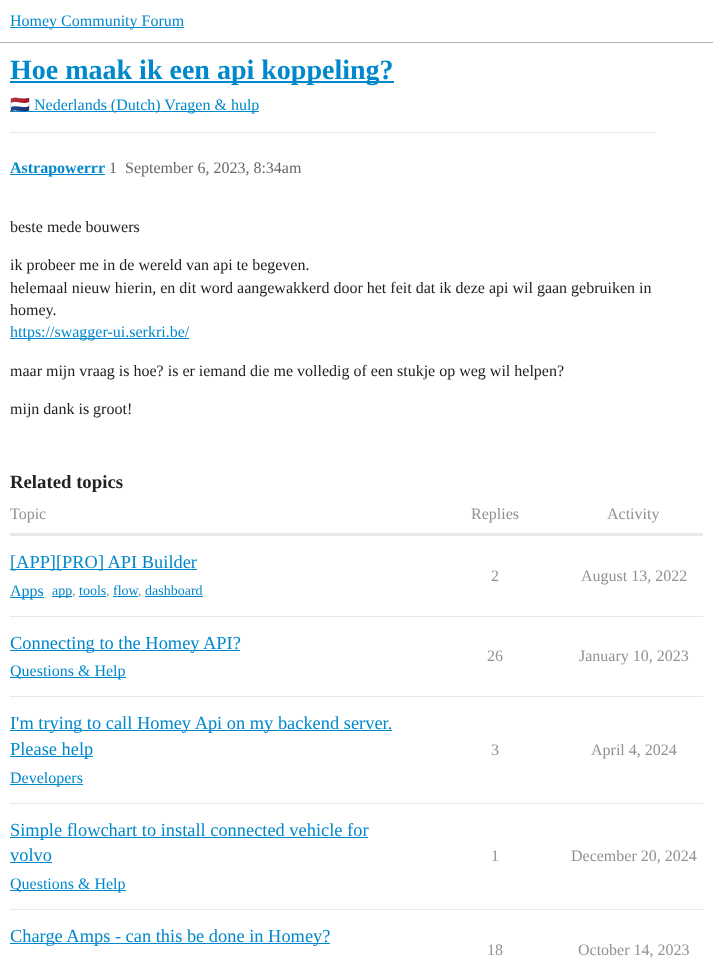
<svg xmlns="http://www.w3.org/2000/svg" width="713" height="965">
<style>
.a{font:16px Liberation Serif;fill:#08c}
.b{font:bold 28px Liberation Serif;fill:#08c}
.c{font:16px Noto Color Emoji;fill:#08c}
.d{font:bold 16px Liberation Serif;fill:#08c}
.e{font:16px Liberation Serif;fill:#666}
.f{font:16px Liberation Serif;fill:#222}
.g{font:bold 18.75px Liberation Serif;fill:#222}
.h{font:16px Liberation Serif;fill:#919191}
.i{font:18.4px Liberation Serif;fill:#08c}
.j{font:14px Liberation Serif;fill:#08c}
.k{font:14px Liberation Serif;fill:#919191}
</style>
<rect width="100%" height="100%" fill="#fff"/>
<path fill="#afafaf" d="M0 42h713v1H0z"/>
<path fill="#08c" d="M10 27h174v1H10z"/>
<path fill="#08c" d="M10 81h384v2H10z"/>
<path fill="#08c" d="M10 111h249v1H10z"/>
<path fill="#e9e9e9" d="M10 132h646v1H10z"/>
<path fill="#08c" d="M10 174h95v1H10z"/>
<path fill="#08c" d="M10 338h179v1H10z"/>
<path fill="#e9e9e9" d="M10 533h693v3H10z"/>
<path fill="#e9e9e9" d="M10 616h693v1H10z"/>
<path fill="#08c" d="M10 569h187v1H10z"/>
<path fill="#08c" d="M10 597h34v1H10z"/>
<path fill="#08c" d="M52 596h20v1H52z"/>
<path fill="#08c" d="M79 596h27v1H79z"/>
<path fill="#08c" d="M113 596h25v1H113z"/>
<path fill="#08c" d="M145 596h58v1H145z"/>
<path fill="#e9e9e9" d="M10 696h693v1H10z"/>
<path fill="#08c" d="M10 650h230v1H10z"/>
<path fill="#08c" d="M10 677h116v1H10z"/>
<path fill="#e9e9e9" d="M10 803h693v1H10z"/>
<path fill="#08c" d="M10 730h382v1H10z"/>
<path fill="#08c" d="M10 756h83v1H10z"/>
<path fill="#08c" d="M10 784h73v1H10z"/>
<path fill="#e9e9e9" d="M10 909h693v1H10z"/>
<path fill="#08c" d="M10 837h358v1H10z"/>
<path fill="#08c" d="M10 862h42v1H10z"/>
<path fill="#08c" d="M10 890h116v1H10z"/>
<path fill="#08c" d="M10 943h320v1H10z"/>
<text class="a" x="10" y="26">Homey Community Forum</text>
<text class="b" x="10" y="79">Hoe maak ik een api koppeling?</text>
<text class="c" x="10" y="110">🇳🇱</text>
<text class="a" x="34" y="110">Nederlands (Dutch) Vragen &amp; hulp</text>
<text class="d" x="10" y="173">Astrapowerrr</text>
<text class="e" x="109" y="173">1</text>
<text class="e" x="125" y="173">September 6, 2023, 8:34am</text>
<text class="f" x="10" y="232">beste mede bouwers</text>
<text class="f" x="10" y="270">ik probeer me in de wereld van api te begeven.</text>
<text class="f" x="10" y="293">helemaal nieuw hierin, en dit word aangewakkerd door het feit dat ik deze api wil gaan gebruiken in</text>
<text class="f" x="10" y="315">homey.</text>
<text class="a" x="10" y="337">https://swagger-ui.serkri.be/</text>
<text class="f" x="10" y="376">maar mijn vraag is hoe? is er iemand die me volledig of een stukje op weg wil helpen?</text>
<text class="f" x="10" y="414">mijn dank is groot!</text>
<text class="g" x="10" y="488">Related topics</text>
<text class="h" x="10" y="519">Topic</text>
<text class="h" x="471" y="519">Replies</text>
<text class="h" x="607" y="519">Activity</text>
<text class="i" x="10" y="568">[APP][PRO] API Builder</text>
<text class="a" x="10" y="596">Apps</text>
<text class="j" x="52" y="595">app</text>
<text class="k" x="72" y="595">,</text>
<text class="j" x="79" y="595">tools</text>
<text class="k" x="106" y="595">,</text>
<text class="j" x="113" y="595">flow</text>
<text class="k" x="138" y="595">,</text>
<text class="j" x="145" y="595">dashboard</text>
<text class="h" x="491" y="581">2</text>
<text class="h" x="581" y="581">August 13, 2022</text>
<text class="i" x="10" y="649">Connecting to the Homey API?</text>
<text class="a" x="10" y="676">Questions &amp; Help</text>
<text class="h" x="487" y="661">26</text>
<text class="h" x="579" y="661">January 10, 2023</text>
<text class="i" x="10" y="729">I'm trying to call Homey Api on my backend server.</text>
<text class="i" x="10" y="755">Please help</text>
<text class="a" x="10" y="783">Developers</text>
<text class="h" x="491" y="755">3</text>
<text class="h" x="591" y="755">April 4, 2024</text>
<text class="i" x="10" y="836">Simple flowchart to install connected vehicle for</text>
<text class="i" x="10" y="861">volvo</text>
<text class="a" x="10" y="889">Questions &amp; Help</text>
<text class="h" x="491" y="861">1</text>
<text class="h" x="571" y="861">December 20, 2024</text>
<text class="i" x="10" y="942">Charge Amps - can this be done in Homey?</text>
<text class="h" x="487" y="955">18</text>
<text class="h" x="578" y="955">October 14, 2023</text>
</svg>
